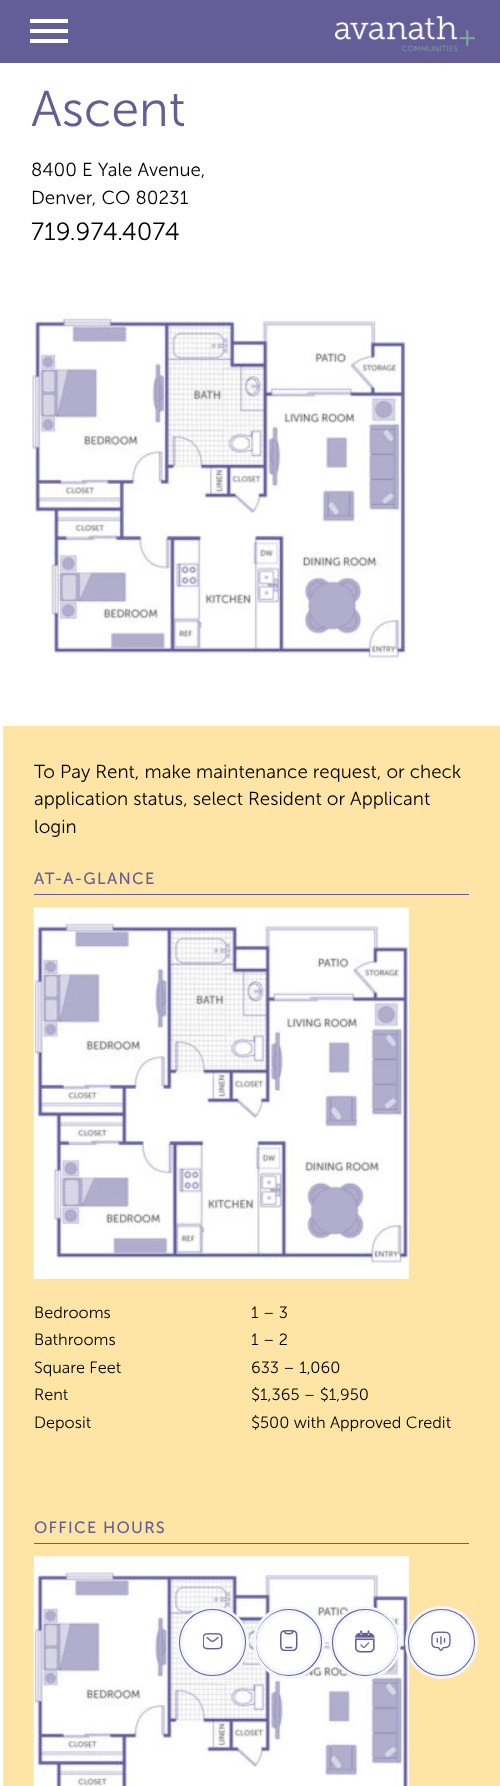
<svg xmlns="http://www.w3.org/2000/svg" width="500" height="1786">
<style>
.a{font:50px 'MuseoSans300';fill:#645d98}
.b{font:18.75px 'MuseoSans300';fill:#000}
.c{font:25px 'MuseoSans300';fill:#000}
.d{font:16.25px 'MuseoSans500';letter-spacing:1.25px;fill:#645d98}
.e{font:16.25px 'MuseoSans300';fill:#000}
</style>
<rect width="100%" height="100%" fill="#fff"/>
<path fill="#645d98" d="M0 0h500v63H0z"/>
<path fill="#fff" d="M30 29h38v4H30z"/>
<path fill="#fff" d="M30 19h38v4H30z"/>
<path fill="#fff" d="M30 39h38v4H30z"/>
<image href="1.png" x="335" y="16" width="140" height="36"/>
<image href="2.png" x="31" y="313" width="375" height="349"/>
<path fill="#fee5a5" d="M3 726h497v1060H3z"/>
<path fill="#645d98" d="M34 894h435v1H34z"/>
<image href="3.png" x="33" y="907" width="376" height="372"/>
<path fill="#645d98" d="M34 1543h435v1H34z"/>
<image href="4.png" x="33" y="1556" width="376" height="230"/>
<circle fill="#655e9b" stroke="#f3f6fc" stroke-width="3" cx="212.5" cy="1642.5" r="35"/>
<circle fill="#fff" stroke="#f3f6fc" stroke-width="3" cx="212.5" cy="1642.5" r="31"/>
<image href="5.png" x="203" y="1633" width="20" height="17"/>
<rect fill="#655e9b" stroke="#f3f6fc" stroke-width="3" x="254.5" y="1607.5" width="69" height="70" rx="34.5"/>
<circle fill="#fff" stroke="#f3f6fc" stroke-width="3" cx="288.5" cy="1642.5" r="31"/>
<image href="6.png" x="280" y="1630" width="18" height="21"/>
<rect fill="#655e9b" stroke="#f3f6fc" stroke-width="3" x="330.5" y="1607.5" width="69" height="70" rx="34.5"/>
<circle fill="#fff" stroke="#f3f6fc" stroke-width="3" cx="365.5" cy="1642.5" r="31"/>
<image href="7.png" x="355" y="1630" width="20" height="23"/>
<circle fill="#655e9b" stroke="#f3f6fc" stroke-width="3" cx="441.5" cy="1642.5" r="35"/>
<circle fill="#fff" stroke="#f3f6fc" stroke-width="3" cx="441.5" cy="1642.5" r="31"/>
<image href="8.png" x="431" y="1631" width="20" height="20"/>
<text class="a" x="31" y="126">Ascent</text>
<text class="b" x="31" y="176">8400 E Yale Avenue,</text>
<text class="b" x="31" y="204">Denver, CO 80231</text>
<text class="c" x="31" y="240">719.974.4074</text>
<text class="b" x="34" y="778">To Pay Rent, make maintenance request, or check</text>
<text class="b" x="34" y="805">application status, select Resident or Applicant</text>
<text class="b" x="34" y="833">login</text>
<text class="d" x="34" y="884">AT-A-GLANCE</text>
<text class="e" x="34" y="1318">Bedrooms</text>
<text class="e" x="251" y="1318">1 – 3</text>
<text class="e" x="34" y="1345">Bathrooms</text>
<text class="e" x="251" y="1345">1 – 2</text>
<text class="e" x="34" y="1373">Square Feet</text>
<text class="e" x="251" y="1373">633 – 1,060</text>
<text class="e" x="34" y="1400">Rent</text>
<text class="e" x="251" y="1400">$1,365 – $1,950</text>
<text class="e" x="34" y="1428">Deposit</text>
<text class="e" x="251" y="1428">$500 with Approved Credit</text>
<text class="d" x="34" y="1533">OFFICE HOURS</text>
</svg>
